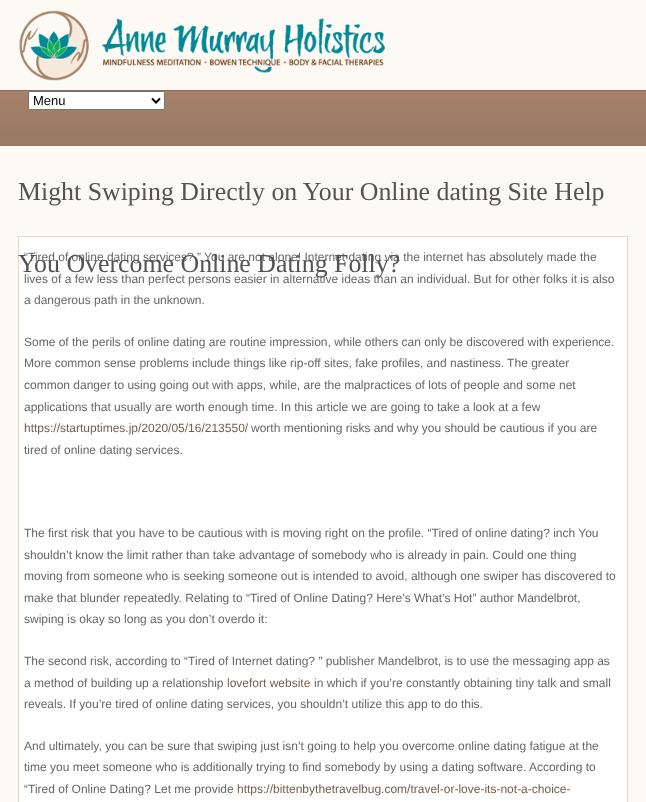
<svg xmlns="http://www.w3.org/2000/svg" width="646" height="802">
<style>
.a{font:13px Liberation Sans;fill:#000}
.b{font:25.85px Liberation Serif;fill:#545353}
.c{font:12px Liberation Sans;fill:#666}
.d{font:12px Liberation Sans;fill:#765d4b}
</style>
<defs>
<linearGradient id="g1" gradientUnits="userSpaceOnUse" x1="323" y1="91" x2="323" y2="146"><stop offset="0" stop-color="#a7816a"/><stop offset="1" stop-color="#977965"/></linearGradient>
</defs>
<rect width="100%" height="100%" fill="#fdf9f5"/>
<image href="1.png" x="19" y="10" width="366" height="71"/>
<path fill="url(#g1)" d="M0 91h646v55H0z"/>
<path fill="#856c5a" d="M0 90h646v1H0z"/>
<rect fill="#fff" stroke="#767676" x="28.5" y="91.5" width="136" height="18" rx="1.5"/>
<path fill="none" stroke="#000" stroke-width="2" d="M152 98.5l4 4l4-4"/>
<path fill="#fff" d="M19 237h608v565H19z"/>
<path fill="#e7d8c8" d="M18 236h610v1H18z"/>
<path fill="#e7d8c8" d="M627 236h1v566H627z"/>
<path fill="#e7d8c8" d="M18 236h1v566H18z"/>
<text class="a" x="33" y="105">Menu</text>
<text class="b" x="18" y="200">Might Swiping Directly on Your Online dating Site Help</text>
<text class="c" x="24" y="261">“Tired of online dating services? ” You are not alone! Internet dating via the internet has absolutely made the</text>
<text class="b" x="18" y="272">You Overcome Online Dating Folly?</text>
<text class="c" x="24" y="283">lives of a few less than perfect persons easier in alternative ideas than an individual. But for other folks it is also</text>
<text class="c" x="24" y="304">a dangerous path in the unknown.</text>
<text class="c" x="24" y="346">Some of the perils of online dating are routine impression, while others can only be discovered with experience.</text>
<text class="c" x="24" y="367">More common sense problems include things like rip-off sites, fake profiles, and nastiness. The greater</text>
<text class="c" x="24" y="389">common danger to using going out with apps, while, are the malpractices of lots of people and some net</text>
<text class="c" x="24" y="411">applications that usually are worth enough time. In this article we are going to take a look at a few</text>
<text class="d" x="24" y="432">https://startuptimes.jp/2020/05/16/213550/</text>
<text class="c" x="251" y="432">worth mentioning risks and why you should be cautious if you are</text>
<text class="c" x="24" y="454">tired of online dating services.</text>
<text class="c" x="24" y="537">The first risk that you have to be cautious with is moving right on the profile. “Tired of online dating? inch You</text>
<text class="c" x="24" y="559">shouldn’t know the limit rather than take advantage of somebody who is already in pain. Could one thing</text>
<text class="c" x="24" y="580">moving from someone who is seeking someone out is intended to avoid, although one swiper has discovered to</text>
<text class="c" x="24" y="602">make that blunder repeatedly. Relating to “Tired of Online Dating? Here’s What’s Hot” author Mandelbrot,</text>
<text class="c" x="24" y="623">swiping is okay so long as you don’t overdo it:</text>
<text class="c" x="24" y="665">The second risk, according to “Tired of Internet dating? ” publisher Mandelbrot, is to use the messaging app as</text>
<text class="c" x="24" y="687">a method of building up a relationship</text>
<text class="d" x="227" y="687">lovefort website</text>
<text class="c" x="314" y="687">in which if you’re constantly obtaining tiny talk and small</text>
<text class="c" x="24" y="708">reveals. If you’re tired of online dating services, you shouldn’t utilize this app to do this.</text>
<text class="c" x="24" y="750">And ultimately, you can be sure that swiping just isn’t going to help you overcome online dating fatigue at the</text>
<text class="c" x="24" y="771">time you meet someone who is additionally trying to find somebody by using a dating software. According to</text>
<text class="c" x="24" y="793">“Tired of Online Dating? Let me provide</text>
<text class="d" x="237" y="793">https://bittenbythetravelbug.com/travel-or-love-its-not-a-choice-</text>
</svg>
